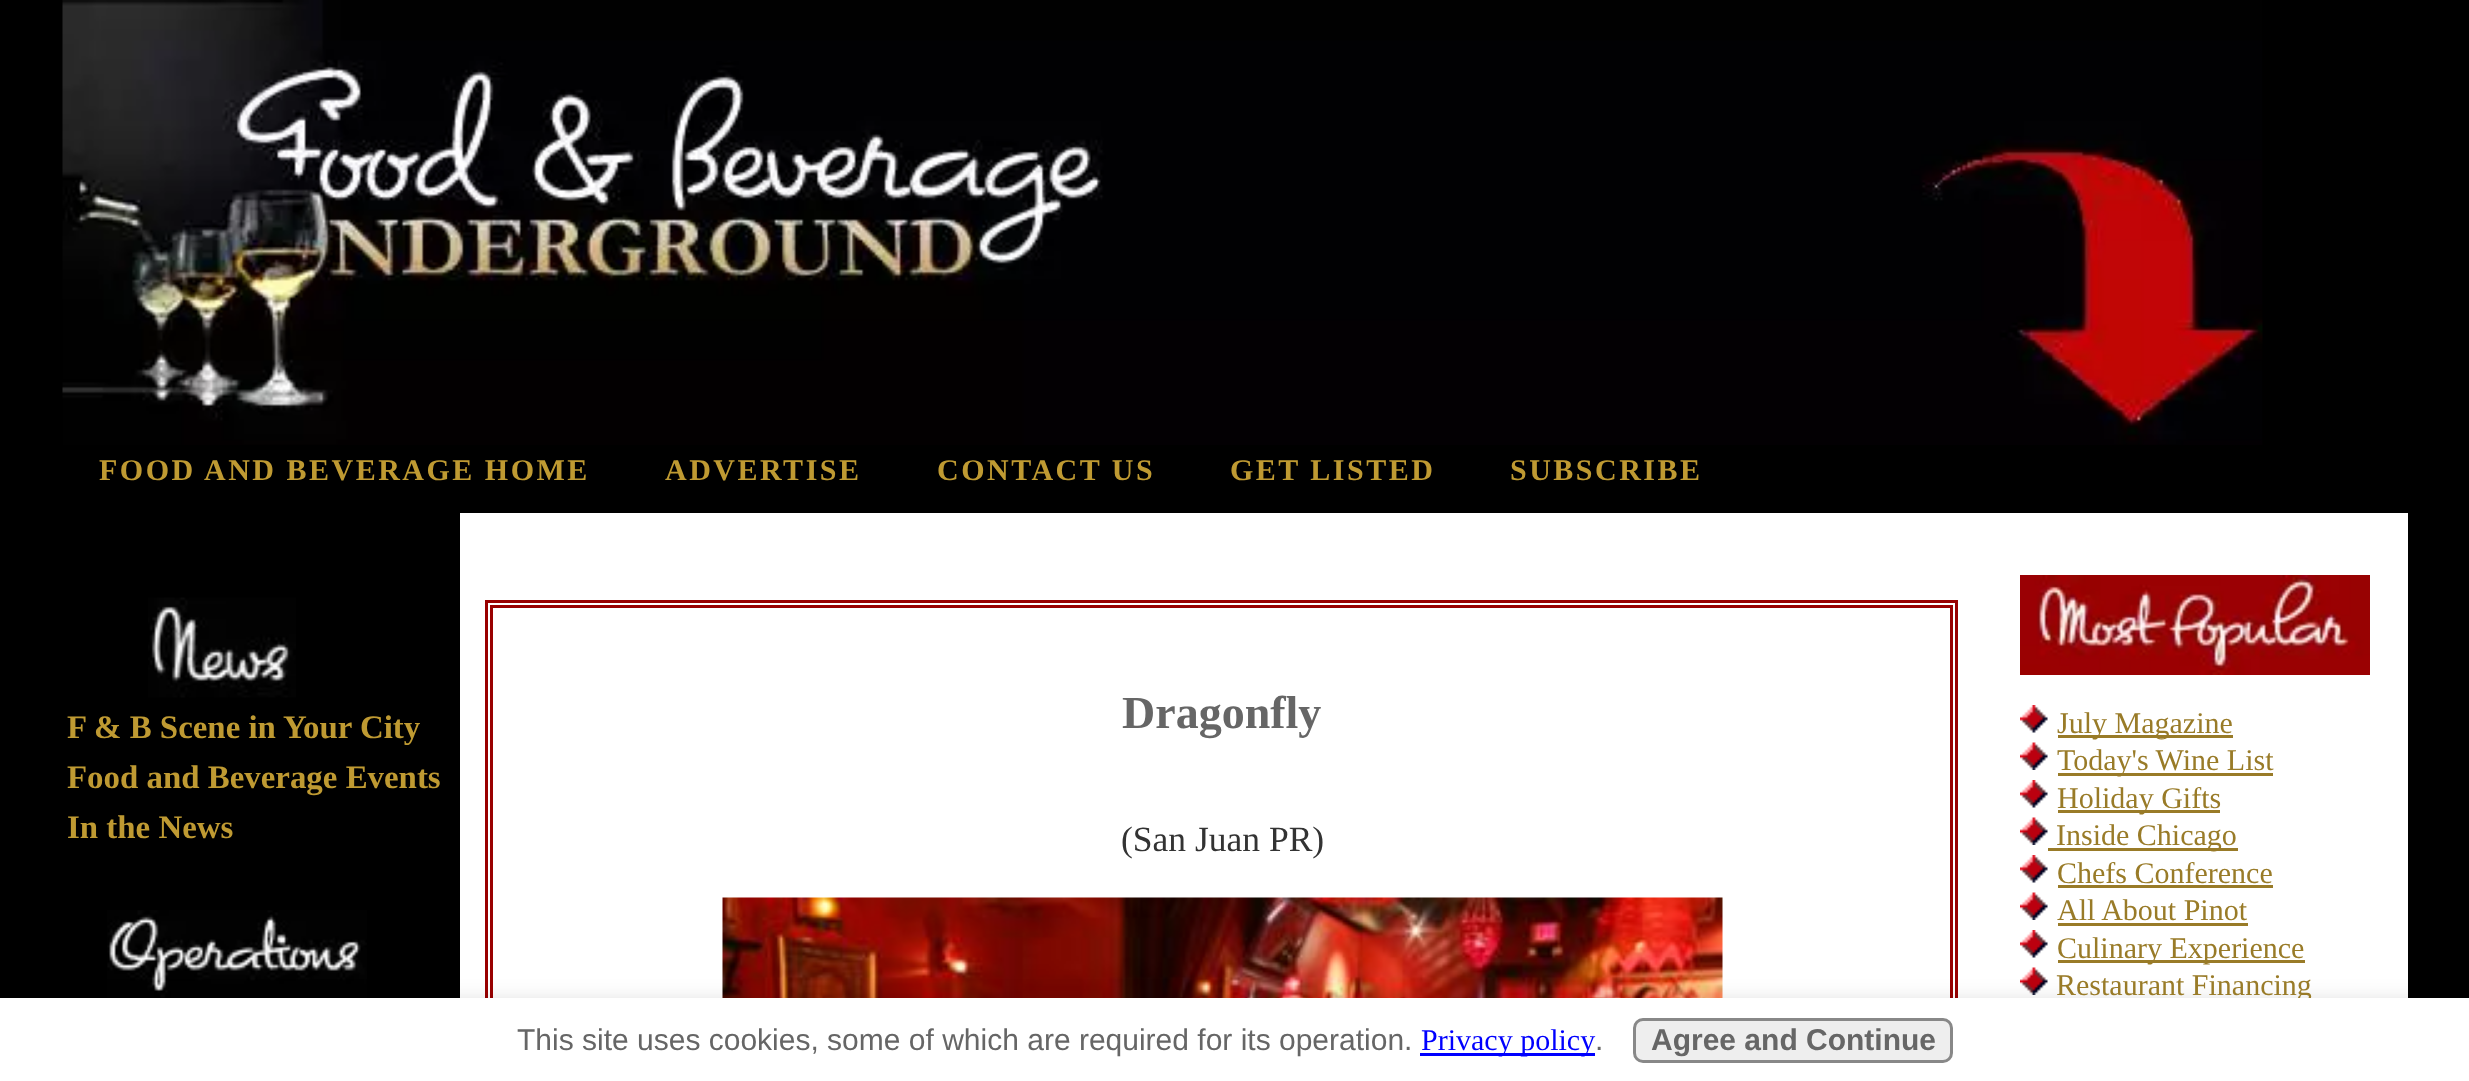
<svg xmlns="http://www.w3.org/2000/svg" width="2469" height="1081">
<style>
.a{font:bold 30px Liberation Serif;letter-spacing:2.5px;fill:#bf9a32}
.b{font:bold 32.9px Liberation Serif;fill:#bf9a32}
.c{font:bold 46px Liberation Serif;fill:#666}
.d{font:35.5px Liberation Serif;fill:#333}
.e{font:30px Liberation Serif;fill:#997b28}
.f{font:30px Liberation Sans;fill:#666}
.g{font:30px Liberation Serif;fill:#00f}
.h{font:bold 30px Liberation Sans;fill:#666}
</style>
<rect width="100%" height="100%" fill="#000"/>
<image href="1.png" x="62" y="0" width="2201" height="445"/>
<image href="2.png" x="148" y="597" width="148" height="101"/>
<image href="3.png" x="107" y="910" width="260" height="88"/>
<path fill="#fff" d="M460 513h1948v485H460z"/>
<path fill="none" stroke="#900" stroke-width="3" d="M486.5 601.5h1470v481H486.5z"/>
<path fill="none" stroke="#900" stroke-width="3" d="M491.5 606.5h1460v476H491.5z"/>
<image href="4.png" x="722" y="897" width="1001" height="101"/>
<image href="5.png" x="2020" y="575" width="350" height="100"/>
<image href="6.png" x="2020" y="705" width="28" height="28"/>
<path fill="#997b28" d="M2058 735h175v3H2058z"/>
<image href="7.png" x="2020" y="742" width="28" height="28"/>
<path fill="#997b28" d="M2058 773h215v3H2058z"/>
<image href="8.png" x="2020" y="780" width="28" height="28"/>
<path fill="#997b28" d="M2058 810h162v3H2058z"/>
<image href="7.png" x="2020" y="817" width="28" height="28"/>
<path fill="#997b28" d="M2048 848h190v3H2048z"/>
<image href="6.png" x="2020" y="855" width="28" height="28"/>
<path fill="#997b28" d="M2058 885h215v3H2058z"/>
<image href="7.png" x="2020" y="892" width="28" height="28"/>
<path fill="#997b28" d="M2058 923h190v3H2058z"/>
<image href="6.png" x="2020" y="930" width="28" height="28"/>
<path fill="#997b28" d="M2058 960h247v3H2058z"/>
<image href="7.png" x="2020" y="967" width="28" height="28"/>
<path fill="#00000033" filter="blur(12.5px)" d="M-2 1005h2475v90H-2z"/>
<text class="a" x="99" y="480">FOOD AND BEVERAGE HOME</text>
<text class="a" x="665" y="480">ADVERTISE</text>
<text class="a" x="937" y="480">CONTACT US</text>
<text class="a" x="1230" y="480">GET LISTED</text>
<text class="a" x="1510" y="480">SUBSCRIBE</text>
<text class="b" x="67" y="738">F &amp; B Scene in Your City</text>
<text class="b" x="67" y="788">Food and Beverage Events</text>
<text class="b" x="67" y="838">In the News</text>
<text class="c" x="1122" y="728">Dragonfly</text>
<text class="d" x="1121" y="851">(San Juan PR)</text>
<text class="e" x="2057" y="733">July Magazine</text>
<text class="e" x="2057" y="770">Today's Wine List</text>
<text class="e" x="2057" y="808">Holiday Gifts</text>
<text class="e" x="2056" y="845">Inside Chicago</text>
<text class="e" x="2057" y="883">Chefs Conference</text>
<text class="e" x="2057" y="920">All About Pinot</text>
<text class="e" x="2057" y="958">Culinary Experience</text>
<text class="e" x="2056" y="995">Restaurant Financing</text>
<path fill="#fff" d="M0 998h2469v83H0z"/>
<text class="f" x="517" y="1050">This site uses cookies, some of which are required for its operation.</text>
<path fill="#00f" d="M1420 1053h175v3H1420z"/>
<text class="g" x="1421" y="1050">Privacy policy</text>
<text class="f" x="1595" y="1050">.</text>
<rect fill="#eee" stroke="#888" stroke-width="3" x="1634.5" y="1019.5" width="317" height="42" rx="8.5"/>
<text class="h" x="1651" y="1050">Agree and Continue</text>
</svg>
